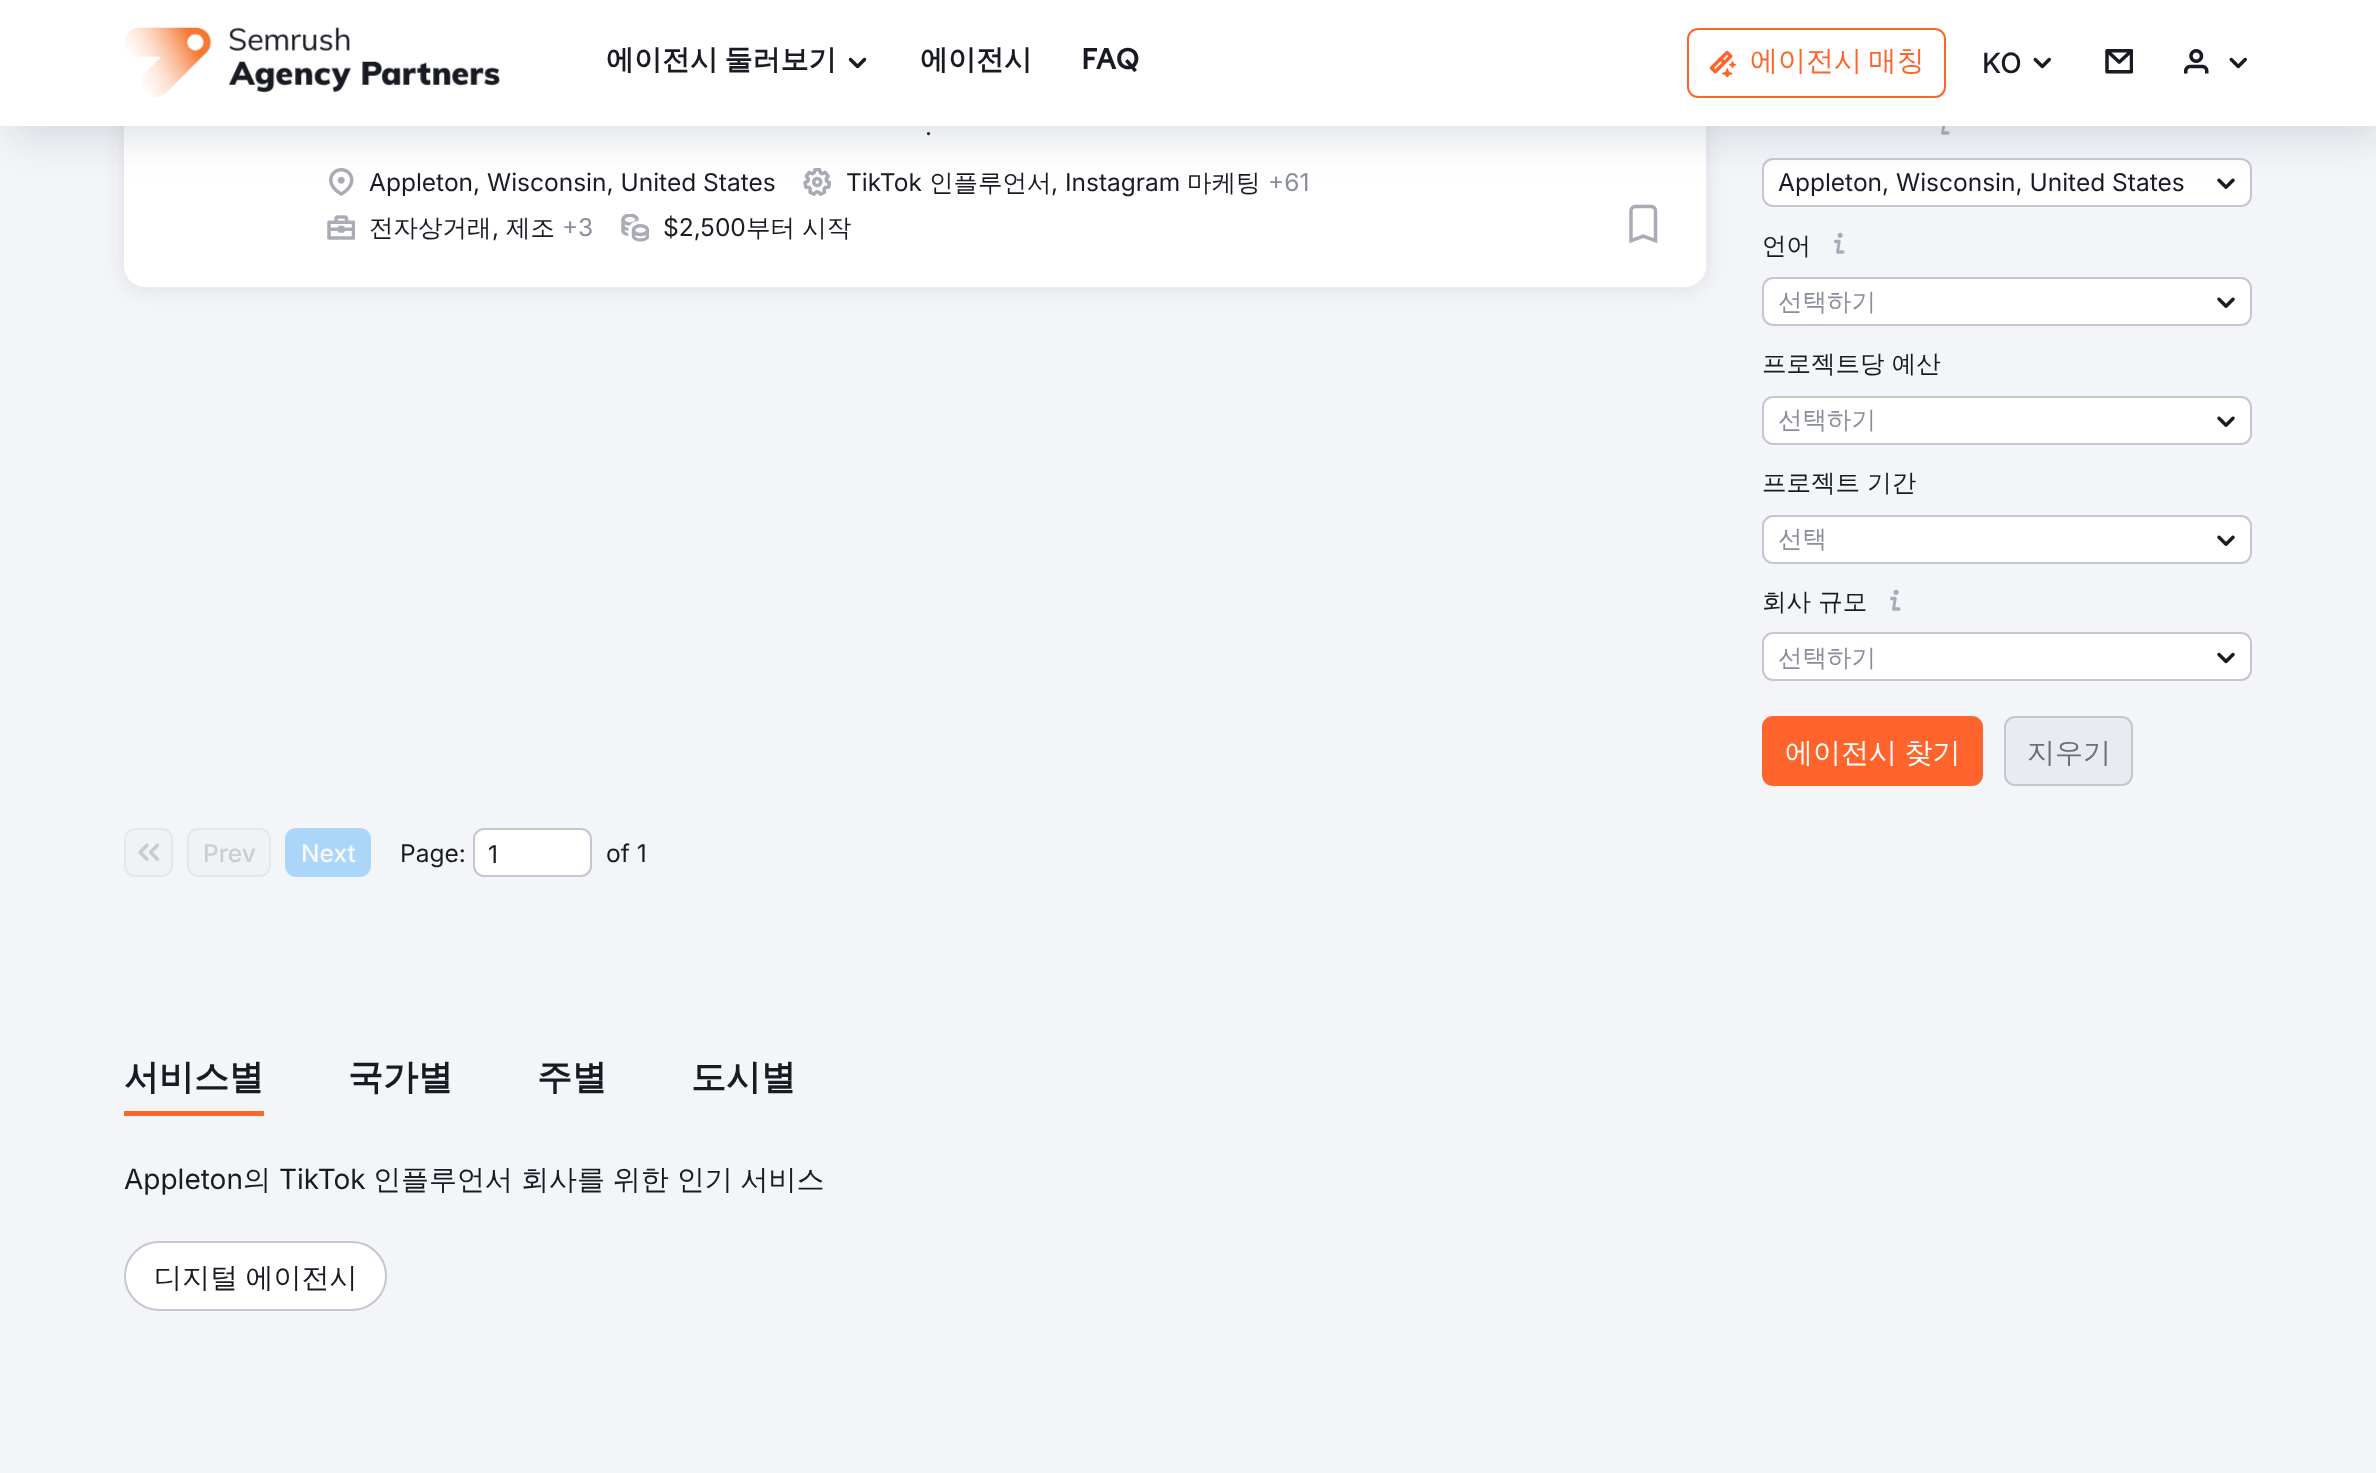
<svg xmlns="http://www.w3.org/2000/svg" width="2376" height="1473">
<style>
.a{font:bold 28px WenQuanYi Zen Hei;fill:#191b23}
.b{font:bold 28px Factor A;fill:#191b23}
.c{font:500 28px WenQuanYi Zen Hei;fill:#ff642d}
.d{font:500 28px Inter;fill:#191b23}
.e{font:24.5px Inter;fill:#191b23}
.f{font:500 24.5px WenQuanYi Zen Hei;fill:#191b23}
.g{font:24.5px Inter;fill:#8a8e9b}
.h{font:500 24.5px WenQuanYi Zen Hei;fill:#8a8e9b}
.i{font:500 28px WenQuanYi Zen Hei;fill:#fff}
.j{font:500 28px WenQuanYi Zen Hei;fill:#6c6e79}
.k{font:500 24.5px Inter;fill:#cbcdd3}
.l{font:500 24.5px Inter;fill:#f7f8fb}
.m{font:bold 35px WenQuanYi Zen Hei;fill:#191b23}
.n{font:28px Inter;fill:#191b23}
.o{font:500 28px WenQuanYi Zen Hei;fill:#191b23}
</style>
<rect width="100%" height="100%" fill="#f4f5f9"/>
<rect fill="#191b231a" filter="blur(10.5px)" x="124" y="-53" width="1582" height="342" rx="21"/>
<rect fill="#fff" x="124" y="-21" width="1582" height="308" rx="21"/>
<image href="7.png" x="329" y="168" width="25" height="28"/>
<image href="8.png" x="803" y="168" width="28" height="28"/>
<image href="12.png" x="1941" y="126" width="9" height="9"/>
<rect fill="#fff" stroke="#c4c7cf" stroke-width="2" x="1763" y="159" width="488" height="47" rx="10"/>
<image href="13.png" x="2217" y="178" width="18" height="11"/>
<path fill="#898d9a4d" filter="blur(22px)" d="M9 9h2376v126H9z"/>
<path fill="#fff" d="M0 0h2376v126H0z"/>
<image href="1.png" x="124" y="27" width="376" height="71"/>
<image href="2.png" x="848" y="57" width="19" height="12"/>
<rect fill="none" stroke="#ff642d" stroke-width="2" x="1688" y="29" width="257" height="68" rx="10"/>
<image href="3.png" x="1709" y="50" width="27" height="27"/>
<image href="4.png" x="2033" y="57" width="18" height="12"/>
<image href="5.png" x="2105" y="49" width="28" height="25"/>
<image href="6.png" x="2184" y="49" width="25" height="25"/>
<image href="4.png" x="2229" y="57" width="18" height="12"/>
<image href="9.png" x="327" y="215" width="28" height="25"/>
<image href="10.png" x="621" y="214" width="28" height="28"/>
<image href="11.png" x="1629" y="204" width="29" height="40"/>
<image href="14.png" x="1834" y="232" width="11" height="22"/>
<rect fill="#fff" stroke="#c4c7cf" stroke-width="2" x="1763" y="278" width="488" height="47" rx="10"/>
<image href="13.png" x="2217" y="297" width="18" height="11"/>
<rect fill="#fff" stroke="#c4c7cf" stroke-width="2" x="1763" y="397" width="488" height="47" rx="10"/>
<image href="13.png" x="2217" y="416" width="18" height="11"/>
<rect fill="#fff" stroke="#c4c7cf" stroke-width="2" x="1763" y="516" width="488" height="47" rx="10"/>
<image href="13.png" x="2217" y="535" width="18" height="11"/>
<image href="14.png" x="1890" y="589" width="11" height="22"/>
<rect fill="#fff" stroke="#c4c7cf" stroke-width="2" x="1763" y="633" width="488" height="47" rx="10"/>
<image href="15.png" x="2217" y="652" width="18" height="12"/>
<rect fill="#ff642d" x="1762" y="716" width="221" height="70" rx="11"/>
<rect fill="#e9ebf0" stroke="#c4c7cf" stroke-width="2" x="2005" y="717" width="127" height="68" rx="10"/>
<rect fill="#f1f2f6" stroke="#e6e7ec" stroke-width="2" x="125" y="829" width="47" height="47" rx="10"/>
<image href="16.png" x="138" y="843" width="22" height="18"/>
<rect fill="#f1f2f6" stroke="#e6e7ec" stroke-width="2" x="188" y="829" width="82" height="47" rx="10"/>
<rect fill="#abd6f9" x="285" y="828" width="86" height="49" rx="11"/>
<rect fill="#fff" stroke="#c4c7cf" stroke-width="2" x="474" y="829" width="117" height="47" rx="10"/>
<path fill="#ff642d" d="M124 1111h140v5H124z"/>
<rect fill="#fff" stroke="#c4c7cf" stroke-width="2" x="125" y="1242" width="261" height="68" rx="34"/>
<text class="a" x="606" y="69" word-spacing="-2">에이전시 둘러보기</text>
<text class="a" x="920" y="69">에이전시</text>
<text class="b" x="1081" y="69">FAQ</text>
<text class="c" x="1750" y="70" word-spacing="-2">에이전시 매칭</text>
<text class="d" x="1982" y="73">KO</text>
<text class="e" x="925" y="135">.</text>
<text class="e" x="369" y="191">Appleton, Wisconsin, United States</text>
<text class="e" x="846" y="191">TikTok</text>
<text class="f" x="929" y="191">인플루언서</text>
<text class="e" x="1051" y="191">, Instagram</text>
<text class="f" x="1187" y="191">마케팅</text>
<text class="g" x="1268" y="191">+61</text>
<text class="f" x="369" y="236">전자상거래</text>
<text class="e" x="492" y="236">,</text>
<text class="f" x="506" y="236">제조</text>
<text class="g" x="562" y="236">+3</text>
<text class="e" x="663" y="236">$2,500</text>
<text class="f" x="746" y="236">부터 시작</text>
<text class="e" x="1778" y="191">Appleton, Wisconsin, United States</text>
<text class="f" x="1762" y="254">언어</text>
<text class="h" x="1778" y="310">선택하기</text>
<text class="f" x="1762" y="372">프로젝트당 예산</text>
<text class="h" x="1778" y="428">선택하기</text>
<text class="f" x="1762" y="491">프로젝트 기간</text>
<text class="h" x="1778" y="547">선택</text>
<text class="f" x="1762" y="610">회사 규모</text>
<text class="h" x="1778" y="666">선택하기</text>
<text class="i" x="1785" y="762" word-spacing="-1">에이전시 찾기</text>
<text class="j" x="2027" y="762">지우기</text>
<text class="k" x="203" y="862">Prev</text>
<text class="l" x="301" y="862">Next</text>
<text class="e" x="400" y="862">Page:</text>
<text class="e" x="488" y="863">1</text>
<text class="e" x="606" y="862">of 1</text>
<text class="m" x="124" y="1089">서비스별</text>
<text class="m" x="348" y="1089">국가별</text>
<text class="m" x="537" y="1089">주별</text>
<text class="m" x="691" y="1089">도시별</text>
<text class="n" x="124" y="1189">Appleton</text>
<text class="o" x="243" y="1189">의</text>
<text class="n" x="279" y="1189">TikTok</text>
<text class="o" x="373" y="1189" word-spacing="-0.5">인플루언서 회사를 위한 인기 서비스</text>
<text class="o" x="154" y="1287" word-spacing="-1">디지털 에이전시</text>
</svg>
